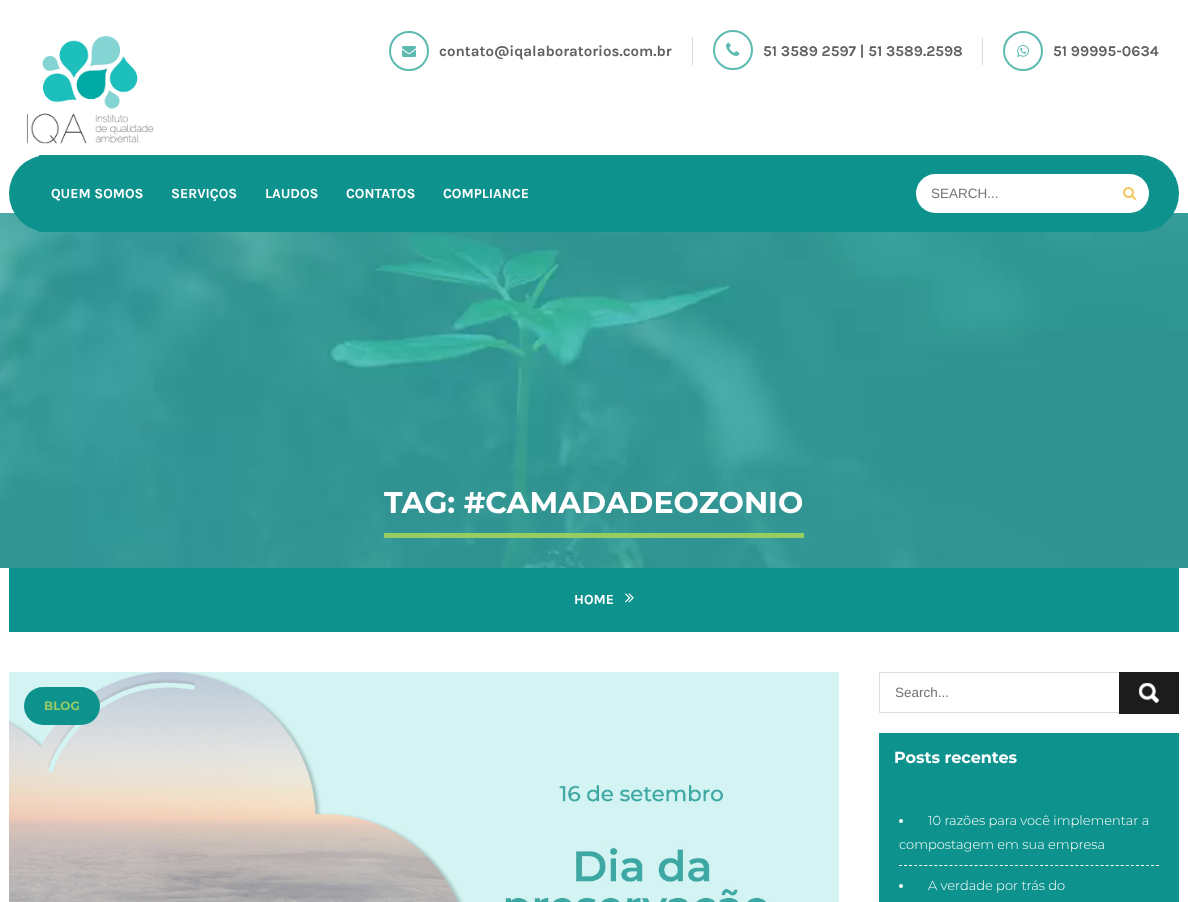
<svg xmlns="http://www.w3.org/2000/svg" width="1188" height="902">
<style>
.a{font:bold 15px Karla;fill:#606060}
.b{font:bold 14px Karla;fill:#fff}
.c{font:13.5px Liberation Sans;fill:#757575}
.d{font:bold 30px Montserrat;fill:#fff}
.e{font:bold 12px Montserrat;fill:#95cb62}
.f{font:bold 16px Montserrat;fill:#fff}
.g{font:300 13px Montserrat;fill:#fff}
</style>
<rect width="100%" height="100%" fill="#fff"/>
<image href="1.png" x="26" y="35" width="128" height="109"/>
<path fill="#dbdbdb" d="M692 37h1v28H692z"/>
<circle fill="none" stroke="#5dbab0" stroke-width="2" cx="409" cy="51" r="19"/>
<image href="2.png" x="402" y="46" width="14" height="11"/>
<path fill="#dbdbdb" d="M982 37h1v28H982z"/>
<circle fill="none" stroke="#5dbab0" stroke-width="2" cx="733" cy="50" r="19"/>
<image href="3.png" x="726" y="42" width="14" height="14"/>
<circle fill="none" stroke="#5dbab0" stroke-width="2" cx="1023" cy="51" r="19"/>
<image href="4.png" x="1017" y="45" width="12" height="12"/>
<image href="6.png" x="0" y="213" width="1188" height="355"/>
<rect fill="#0d928d" x="9" y="155" width="1170" height="77" rx="38.5"/>
<path fill="#0d928d" d="M39 155h8v77H39z"/>
<rect fill="#fff" x="916" y="174" width="233" height="39" rx="19.5"/>
<image href="5.png" x="1123" y="187" width="13" height="13"/>
<path fill="#95cd62" d="M384 533h420v5H384z"/>
<path fill="#0d928d" d="M9 568h1170v64H9z"/>
<image href="7.png" x="625" y="593" width="9" height="10"/>
<image href="8.png" x="9" y="672" width="830" height="230"/>
<rect fill="#0d928d" x="24" y="687" width="76" height="38" rx="19"/>
<path fill="#ddd" d="M879 672h240v1H879z"/>
<path fill="#ddd" d="M879 712h240v1H879z"/>
<path fill="#ddd" d="M879 672h1v41H879z"/>
<path fill="#1c1c1c" d="M1119 672h60v42H1119z"/>
<image href="9.png" x="1139" y="683" width="20" height="20"/>
<path fill="#0d928d" d="M879 733h300v169H879z"/>
<path fill="none" stroke="#fff" stroke-dasharray="3 2.04" d="M899 865.5h260"/>
<circle fill="#fff" cx="901" cy="821" r="2"/>
<circle fill="#fff" cx="901" cy="886" r="2"/>
<text class="a" x="439" y="56">contato@iqalaboratorios.com.br</text>
<text class="a" x="763" y="56">51 3589 2597 | 51 3589.2598</text>
<text class="a" x="1053" y="56">51 99995-0634</text>
<text class="b" x="51" y="198">QUEM SOMOS</text>
<text class="b" x="171" y="198">SERVIÇOS</text>
<text class="b" x="265" y="198">LAUDOS</text>
<text class="b" x="346" y="198">CONTATOS</text>
<text class="b" x="443" y="198">COMPLIANCE</text>
<text class="c" x="931" y="198">SEARCH...</text>
<text class="d" x="384" y="513">TAG: #CAMADADEOZONIO</text>
<text class="b" x="574" y="604">HOME</text>
<text class="e" x="44" y="710">BLOG</text>
<text class="c" x="895" y="697">Search...</text>
<text class="f" x="894" y="763">Posts recentes</text>
<text class="g" x="928" y="825">10 razões para você implementar a</text>
<text class="g" x="899" y="849">compostagem em sua empresa</text>
<text class="g" x="928" y="890">A verdade por trás do</text>
</svg>
